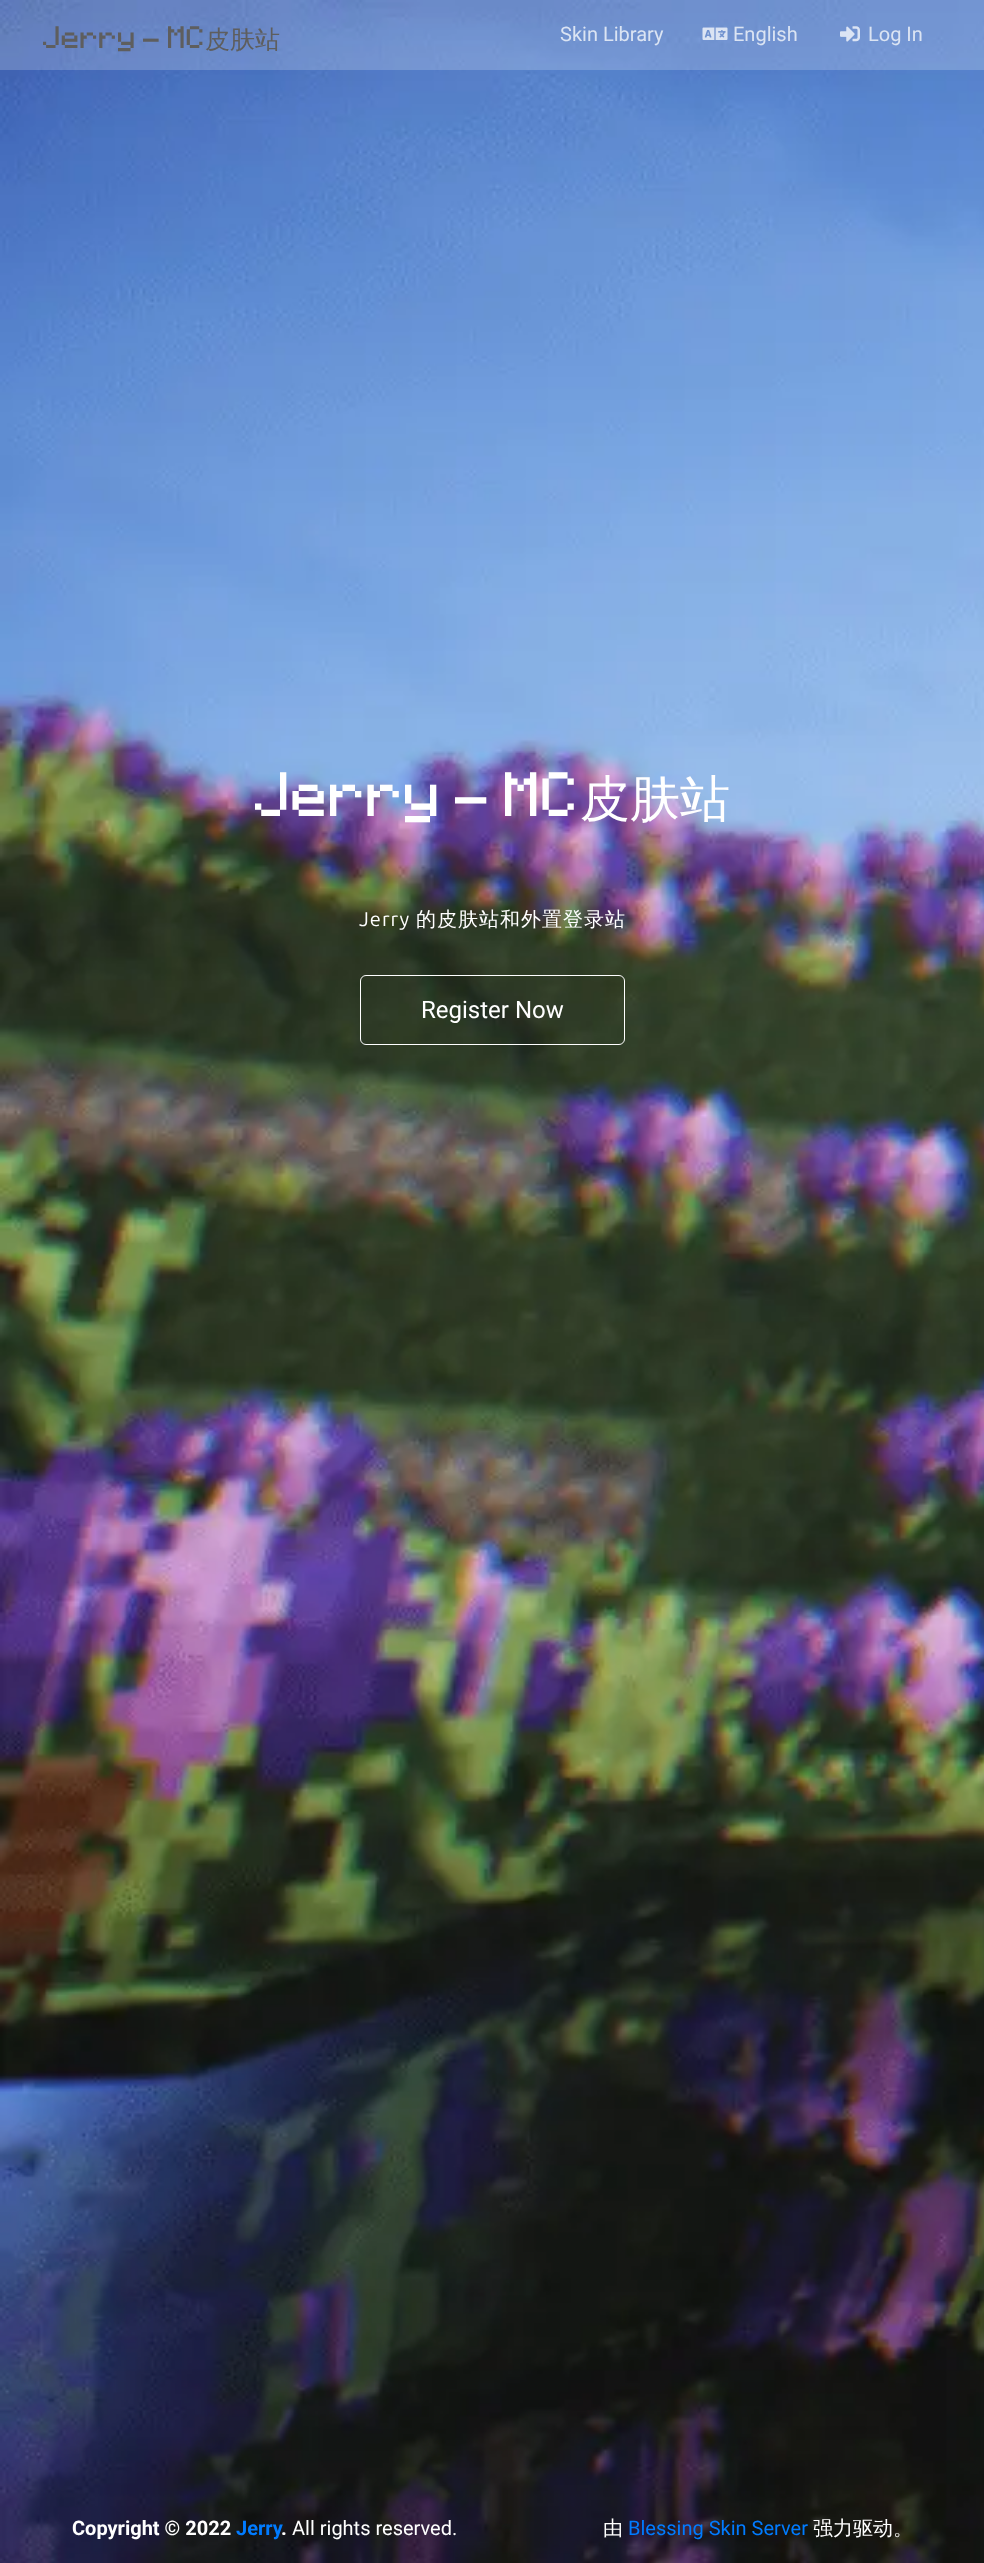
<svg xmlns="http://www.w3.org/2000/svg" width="984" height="2563">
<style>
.a{font:25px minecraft;fill:#5e5e5e}
.b{font:500 25px WenQuanYi Zen Hei;fill:#5e5e5e}
.c{font:20px Roboto;fill:#dbe4f3}
.d{font:50px minecraft;fill:#fff}
.e{font:500 50px WenQuanYi Zen Hei;fill:#fff}
.f{font:20px Ubuntu;letter-spacing:1px;fill:#fff}
.g{font:500 20px WenQuanYi Zen Hei;letter-spacing:1px;fill:#fff}
.h{font:24px Roboto;fill:#fff}
.i{font:bold 20px Roboto;fill:#fff}
.j{font:bold 20px Roboto;fill:#007bff}
.k{font:20px Roboto;fill:#fff}
.l{font:500 20px WenQuanYi Zen Hei;fill:#fff}
.m{font:20px Roboto;fill:#007bff}
</style>
<rect width="100%" height="100%" fill="#fff"/>
<image href="1.png" x="0" y="0" width="984" height="2563"/>
<path fill="#ffffff33" d="M0 0h984v70H0z"/>
<image href="2.png" x="702" y="27" width="26" height="13"/>
<image href="3.png" x="840" y="26" width="20" height="16"/>
<rect fill="none" stroke="#fff" x="360.5" y="975.5" width="264" height="69" rx="5.5"/>
<text class="a" x="43" y="48">Jerry - MC</text>
<text class="b" x="205" y="48">皮肤站</text>
<text class="c" x="560" y="41">Skin Library</text>
<text class="c" x="733" y="41">English</text>
<text class="c" x="868" y="41">Log In</text>
<text class="d" x="255" y="816">Jerry - MC</text>
<text class="e" x="580" y="816">皮肤站</text>
<text class="f" x="359" y="926">Jerry</text>
<text class="g" x="416" y="926">的皮肤站和外置登录站</text>
<text class="h" x="421" y="1018">Register Now</text>
<text class="i" x="72" y="2535">Copyright © 2022</text>
<text class="j" x="236" y="2535">Jerry</text>
<text class="i" x="281" y="2535">.</text>
<text class="k" x="292" y="2535">All rights reserved.</text>
<text class="l" x="603" y="2535">由</text>
<text class="m" x="628" y="2535">Blessing Skin Server</text>
<text class="l" x="813" y="2535">强力驱动。</text>
</svg>
